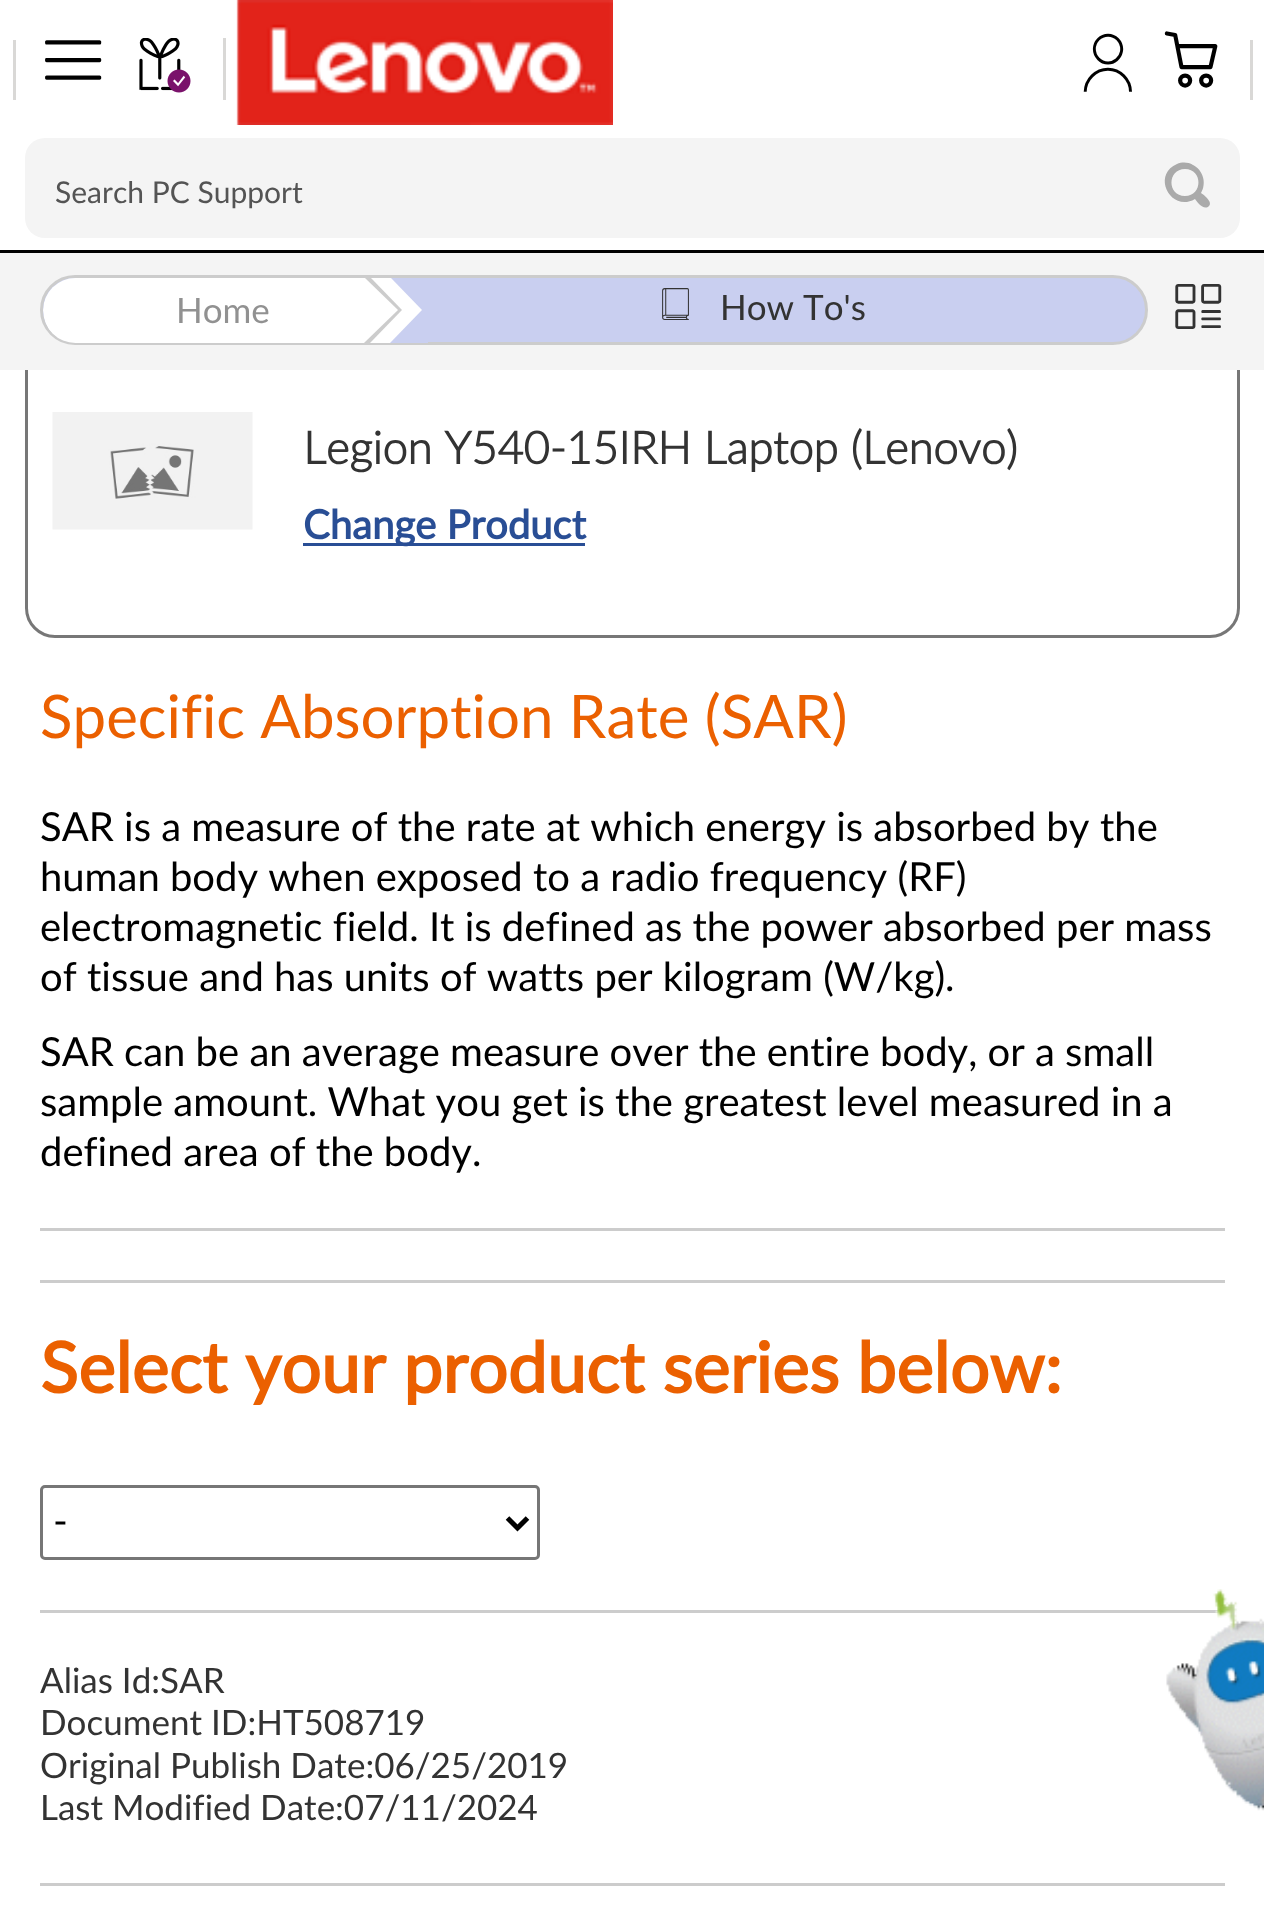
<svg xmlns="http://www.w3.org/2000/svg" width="1264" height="1928">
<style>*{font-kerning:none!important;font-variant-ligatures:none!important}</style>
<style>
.a{font:60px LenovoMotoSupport;fill:#000}
.b{font:30px Lato;fill:#545454}
.c{font:35px Lato;fill:#919191}
.d{font:35px LenovoMotoSupport;fill:#333}
.e{font:35px Lato;fill:#333}
.f{font:55px LenovoMotoSupport;fill:#333}
.g{font:bold 45px 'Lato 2';fill:#333}
.h{font:bold 40px Lato;fill:#294e95}
.i{font:60px Lato;fill:#eb6000}
.j{font:40px Lato;fill:#000}
.k{font:bold 70px Lato;fill:#eb6000}
</style>
<defs>
<clipPath id="clip1"><rect x="43" y="278" width="1102" height="65" rx="32.5"/></clipPath>
</defs>
<rect width="100%" height="100%" fill="#fff"/>
<path fill="#000" d="M0 250h1264v3H0z"/>
<path fill="#d9d8d6" d="M13 40h3v60H13z"/>
<path fill="#d9d8d6" d="M223 38h3v62H223z"/>
<image href="1.png" x="139" y="38" width="52" height="55"/>
<image href="2.png" x="236" y="0" width="377" height="125"/>
<path fill="#d9d8d6" d="M1250 40h3v60H1250z"/>
<rect fill="#f4f4f4" x="25" y="138" width="1215" height="100" rx="20"/>
<path fill="#aaa" d="M1209 206c4-4-5-11-8-13c6-10 2-23-8-28c-5-3-11-3-16-1c-26 11-6 49 18 35c2 3 9 12 14 7zm-24-37c18 0 18 27 0 27c-18 0-18-27 0-27z"/>
<rect fill="none" stroke="#777" stroke-width="3" x="26.5" y="339.5" width="1212" height="297" rx="28.5"/>
<path fill="#f4f4f4" d="M0 253h1264v117H0z"/>
<rect fill="#c9cff0" stroke="#ccc" stroke-width="3" x="41.5" y="276.5" width="1105" height="67" rx="33.5"/>
<g clip-path="url(#clip1)">
<rect fill="#fff" x="43" y="275" width="360" height="70" rx="35"/>
</g>
<path fill="#ccc" d="M402 278v32h-4l-33-32z"/>
<path fill="#ccc" d="M402 343h-38l34-33h4z"/>
<path fill="#fff" d="M422 278v32h-20l-31-32z"/>
<path fill="#fff" d="M422 343h-52l32-33h20z"/>
<path fill="#c9cff0" d="M428 278v32h-6l-31-32z"/>
<path fill="#c9cff0" d="M428 343h-38l32-33h6z"/>
<image href="3.png" x="52" y="412" width="201" height="118"/>
<path fill="#294e95" d="M303 543h282v3H303z"/>
<path fill="#ccc" d="M40 1228h1185v3H40z"/>
<path fill="#ccc" d="M40 1280h1185v3H40z"/>
<rect fill="none" stroke="#767676" stroke-width="3" x="41.5" y="1486.5" width="497" height="72" rx="3.5"/>
<path fill="none" stroke="#000" stroke-width="5" d="M507.5 1518l10 10l10-10"/>
<path fill="#ccc" d="M40 1610h1185v3H40z"/>
<path fill="#ccc" d="M40 1883h1185v3H40z"/>
<image href="4.png" x="1166" y="1589" width="98" height="222"/>
<text class="a" x="45" y="88">󡑇</text>
<text class="a" x="1078" y="88">󡑆</text>
<text class="a" x="1163" y="88">󡐑</text>
<text class="b" x="55" y="203">Search PC Support</text>
<text class="c" x="176" y="323">Home</text>
<text class="d" x="658" y="320">󡊓</text>
<text class="e" x="720" y="320">How To's</text>
<text class="f" x="1172" y="329">󡒉</text>
<text class="g" x="303" y="464">Legion Y540-15IRH Laptop (Lenovo)</text>
<text class="h" x="303" y="539">Change Product</text>
<text class="i" x="40" y="738">Specific Absorption Rate (SAR)</text>
<text class="j" x="40" y="841">SAR is a measure of the rate at which energy is absorbed by</text>
<text class="j" x="1100" y="841">the</text>
<text class="j" x="40" y="891">human body when exposed to a radio frequency (RF)</text>
<text class="j" x="40" y="941">electromagnetic field. It is defined as the power absorbed per mass</text>
<text class="j" x="40" y="991">of tissue and has units of watts per kilogram (W/kg).</text>
<text class="j" x="40" y="1066">SAR can be an average measure over the entire body, or</text>
<text class="j" x="1035" y="1066">a small</text>
<text class="j" x="40" y="1116">sample amount. What you get is the greatest level measured in a</text>
<text class="j" x="40" y="1166">defined area of the body.</text>
<text class="k" x="40" y="1393">Select your product series below:</text>
<text class="j" x="53" y="1535">-</text>
<text class="e" x="40" y="1693">Alias Id:SAR</text>
<text class="e" x="40" y="1735">Document ID:HT508719</text>
<text class="e" x="40" y="1778">Original Publish Date:06/25/2019</text>
<text class="e" x="40" y="1820">Last Modified Date:07/11/2024</text>
</svg>
